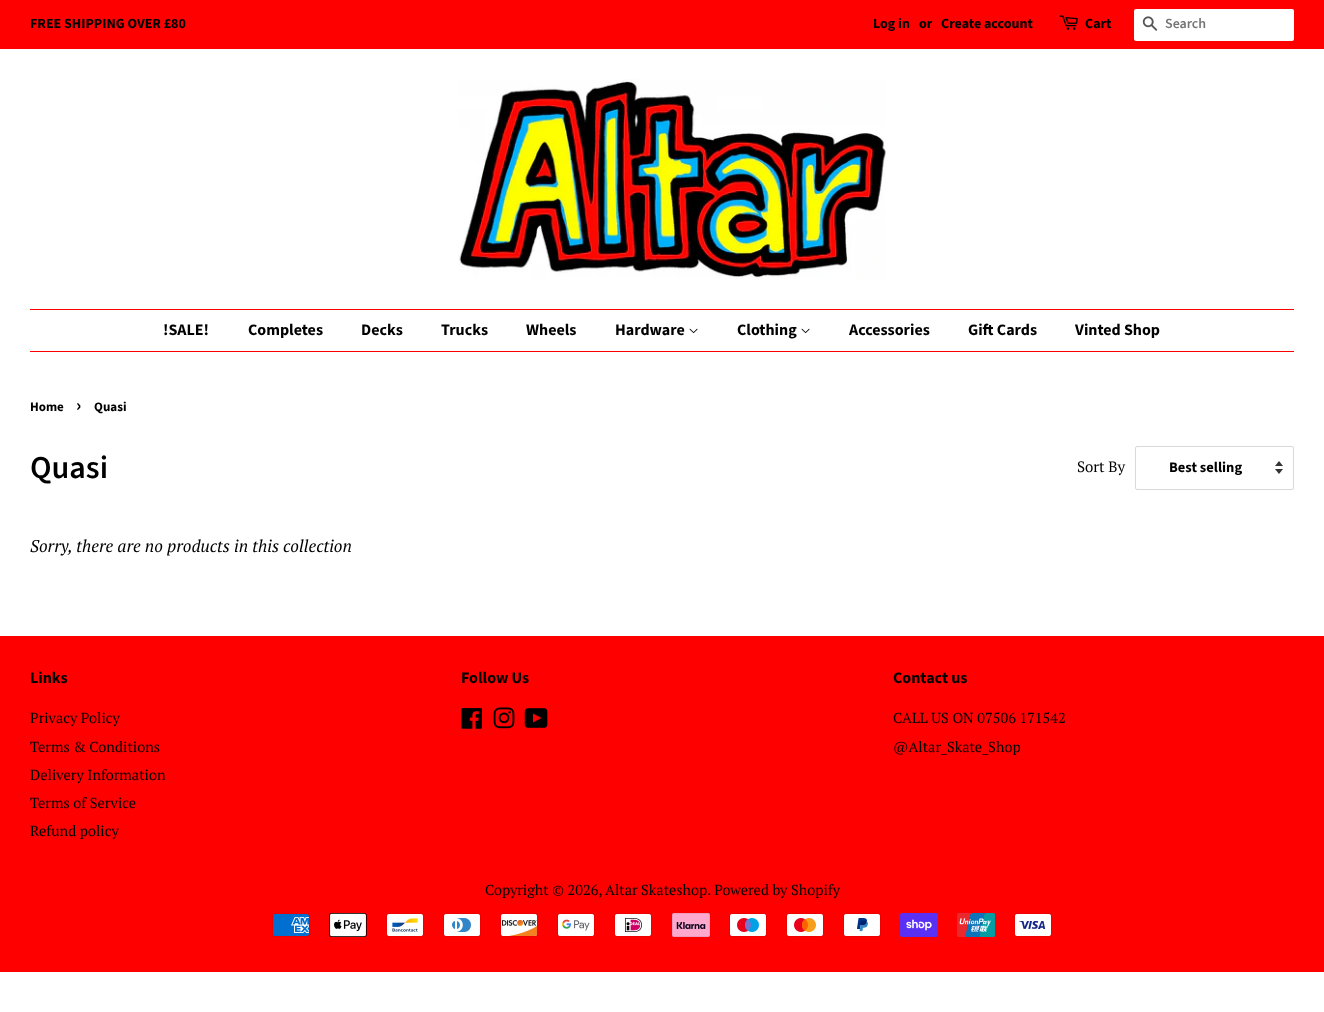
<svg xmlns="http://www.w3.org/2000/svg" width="1324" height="1012">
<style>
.a{font:bold 14px Source Sans Pro;fill:#000}
.b{font:600 14px Source Sans Pro;fill:#757575}
.c{font:bold 16px Source Sans Pro;fill:#000}
.d{font:bold 13px Source Sans Pro;fill:#000}
.e{font:bold 18px Source Sans Pro;fill:#000}
.f{font:600 32px Source Sans Pro;fill:#000}
.g{font:15px PT Serif;fill:#000}
.h{font:bold 14.5px Source Sans Pro;fill:#000}
.i{font:italic 17px PT Serif;fill:#000}
.j{font:14.5px PT Serif;fill:#000}
</style>
<rect width="100%" height="100%" fill="#fff"/>
<path fill="#f00" d="M0 0h1324v49H0z"/>
<image href="1.png" x="1059" y="15" width="19" height="15"/>
<rect fill="#fff" x="1134" y="9" width="160" height="32" rx="2"/>
<image href="2.png" x="1142" y="16" width="16" height="15"/>
<image href="3.png" x="458" y="79" width="428" height="200"/>
<path fill="#f00" d="M30 309h1264v1H30z"/>
<path fill="#f00" d="M30 351h1264v1H30z"/>
<image href="4.png" x="689" y="328" width="9" height="6"/>
<image href="4.png" x="801" y="328" width="9" height="6"/>
<image href="5.png" x="1275" y="461" width="8" height="13"/>
<rect fill="none" stroke="#d9d9d9" x="1135.5" y="446.5" width="158" height="43" rx="1.5"/>
<path fill="#f00" d="M0 636h1324v336H0z"/>
<image href="6.png" x="461" y="708" width="21" height="21"/>
<image href="7.png" x="493" y="707" width="22" height="22"/>
<image href="8.png" x="524" y="708" width="24" height="20"/>
<image href="9.png" x="272" y="913" width="38" height="24"/>
<image href="10.png" x="329" y="913" width="38" height="24"/>
<image href="11.png" x="386" y="913" width="38" height="24"/>
<image href="12.png" x="443" y="913" width="38" height="24"/>
<image href="13.png" x="500" y="913" width="38" height="24"/>
<image href="14.png" x="557" y="913" width="38" height="24"/>
<image href="15.png" x="614" y="913" width="38" height="24"/>
<image href="16.png" x="672" y="913" width="38" height="24"/>
<image href="17.png" x="729" y="913" width="38" height="24"/>
<image href="18.png" x="786" y="913" width="38" height="24"/>
<image href="19.png" x="843" y="913" width="38" height="24"/>
<image href="20.png" x="900" y="913" width="38" height="24"/>
<image href="21.png" x="957" y="913" width="38" height="24"/>
<image href="22.png" x="1014" y="913" width="38" height="24"/>
<text class="a" x="30" y="28">FREE SHIPPING OVER £80</text>
<text class="a" x="873" y="28">Log in</text>
<text class="a" x="919" y="28">or</text>
<text class="a" x="941" y="28">Create account</text>
<text class="a" x="1085" y="28">Cart</text>
<text class="b" x="1165" y="28">Search</text>
<text class="c" x="163" y="335">!SALE!</text>
<text class="c" x="248" y="335">Completes</text>
<text class="c" x="361" y="335">Decks</text>
<text class="c" x="441" y="335">Trucks</text>
<text class="c" x="526" y="335">Wheels</text>
<text class="c" x="615" y="335">Hardware</text>
<text class="c" x="737" y="335">Clothing</text>
<text class="c" x="849" y="335">Accessories</text>
<text class="c" x="968" y="335">Gift Cards</text>
<text class="c" x="1075" y="335">Vinted Shop</text>
<text class="d" x="30" y="411">Home</text>
<text class="e" x="76" y="411">›</text>
<text class="d" x="94" y="411">Quasi</text>
<text class="f" x="30" y="478">Quasi</text>
<text class="g" x="1077" y="472">Sort By</text>
<text class="h" x="1169" y="472">Best selling</text>
<text class="i" x="30" y="552">Sorry, there are no products in this collection</text>
<text class="c" x="30" y="683">Links</text>
<text class="j" x="30" y="723">Privacy Policy</text>
<text class="j" x="30" y="752">Terms &amp; Conditions</text>
<text class="j" x="30" y="780">Delivery Information</text>
<text class="j" x="30" y="808">Terms of Service</text>
<text class="j" x="30" y="836">Refund policy</text>
<text class="c" x="461" y="683">Follow Us</text>
<text class="c" x="893" y="683">Contact us</text>
<text class="j" x="893" y="723">CALL US ON 07506 171542</text>
<text class="j" x="893" y="752">@Altar_Skate_Shop</text>
<text class="j" x="485" y="895">Copyright © 2026,</text>
<text class="j" x="605" y="895">Altar Skateshop. Powered by Shopify</text>
</svg>
